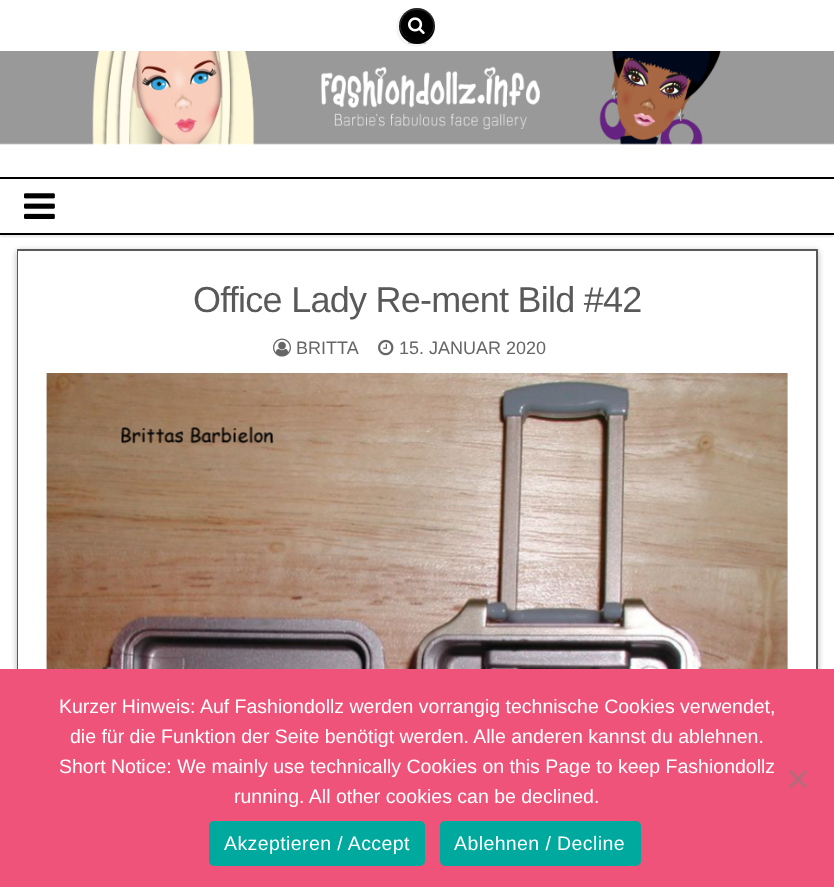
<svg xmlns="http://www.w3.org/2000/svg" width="834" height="887">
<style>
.a{font:36px Liberation Sans;letter-spacing:-0.75px;fill:#595959}
.b{font:18px Liberation Sans;fill:#666}
.c{font:19.5px Liberation Sans;fill:#fff}
.d{font:19.5px Liberation Sans;letter-spacing:0.4px;fill:#fff}
</style>
<defs>
<clipPath id="clip1"><path d="M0 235h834v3H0z"/></clipPath>
</defs>
<rect width="100%" height="100%" fill="#fff"/>
<path fill="#f5f5f5" d="M435 26.5c-.5 9.5-8.5 17-18 17c-10 0-18-8-18-18c0-8 5-14.5 12-17c-20 4.5-20 34 .5 38c5 1 10.5 0 15-3c5.5-3.5 9-10.5 8.5-17z"/>
<circle fill="#000" cx="417" cy="26" r="18"/>
<path fill="#ffffff24" fill-rule="evenodd" d="M417 8c-22 0-25 32 0 32c25 0 22-32 0-32zm0 2c-20 0-23 30 0 30c23 0 20-30 0-30z"/>
<path fill="#0000002e" d="M408 41h18v3H408z"/>
<image href="1.png" x="408" y="17" width="17" height="18"/>
<g clip-path="url(#clip1)">
<path fill="#00000026" filter="blur(2px)" d="M0 179h834v57H0z"/>
</g>
<path fill="#fff" d="M1 176h832v1H1z"/>
<image href="2.png" x="0" y="51" width="834" height="94"/>
<path fill="#000" d="M0 177h834v2H0z"/>
<path fill="#000" d="M0 233h834v2H0z"/>
<image href="3.png" x="24" y="193" width="31" height="26"/>
<path fill="#0000004d" filter="blur(3px)" d="M17 251h801v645H17z"/>
<path fill="#fff" d="M24 257h786v412H24z"/>
<path fill="none" stroke="#595959" stroke-width="2" d="M18 250h799v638H18z"/>
<path fill="none" stroke="#fff" stroke-width="6" d="M21 254h792v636H21z"/>
<image href="4.png" x="273" y="338" width="18" height="19"/>
<image href="5.png" x="378" y="339" width="16" height="17"/>
<image href="6.png" x="46" y="373" width="742" height="296"/>
<path fill="#ef537a" d="M0 669h834v218H0z"/>
<path fill="#b86a7d" d="M805 770l2 2.5l-16 16l-2-2.5z"/>
<path fill="#b86a7d" d="M789 772.5l2-2.5l16 16l-2 2.5z"/>
<rect fill="#00a99d" x="209" y="821" width="216" height="45" rx="5"/>
<rect fill="#00a99d" x="440" y="821" width="201" height="45" rx="5"/>
<text class="a" x="193" y="312">Office Lady Re-ment Bild #42</text>
<text class="b" x="296" y="354">BRITTA</text>
<text class="b" x="399" y="354">15. JANUAR 2020</text>
<text class="c" x="59" y="713">Kurzer Hinweis: Auf Fashiondollz werden vorrangig technische Cookies verwendet,</text>
<text class="c" x="70" y="743">die für die Funktion der Seite benötigt werden. Alle anderen kannst du ablehnen.</text>
<text class="c" x="59" y="773">Short Notice: We mainly use technically Cookies on this Page to keep Fashiondollz</text>
<text class="c" x="234" y="803">running. All other cookies can be declined.</text>
<text class="d" x="224" y="850">Akzeptieren / Accept</text>
<text class="d" x="454" y="850">Ablehnen / Decline</text>
</svg>
